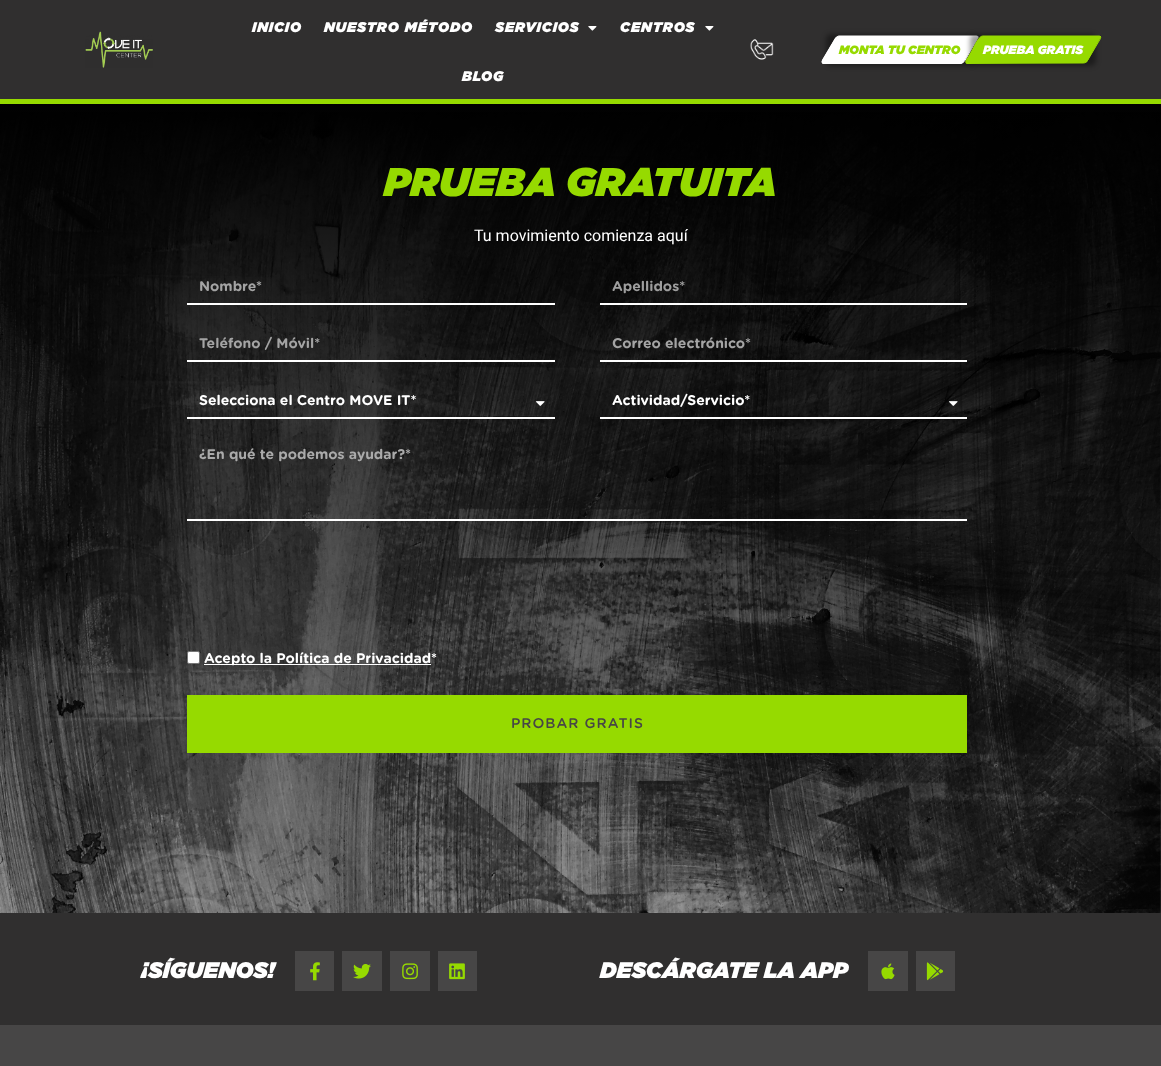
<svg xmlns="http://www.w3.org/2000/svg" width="1161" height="1066">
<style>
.a{font:italic 500 14px Gotham;letter-spacing:0.75px;fill:#fff}
.b{font:italic 500 12px Gotham;fill:#96da00}
.c{font:italic 500 12px Gotham;fill:#fff}
.d{font:italic 500 40px Gotham;fill:#96da00}
.e{font:16px Roboto;fill:#fff}
.f{font:bold 14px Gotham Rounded;fill:#a4a4a4}
.g{font:bold 14px Gotham Rounded;fill:#9e9e9e}
.h{font:bold 14px Gotham Rounded;fill:#fff}
.i{font:bold 14px Gotham Rounded;fill:#aaa}
.j{font:500 14px Gotham Rounded;letter-spacing:1px;fill:#474646}
.k{font:italic 500 22.4px Gotham;fill:#fff}
</style>
<defs>
<linearGradient id="g1" gradientUnits="userSpaceOnUse" x1="581" y1="104" x2="581" y2="913"><stop offset="0" stop-color="#000"/><stop offset="1" stop-color="#000" stop-opacity="0.38"/></linearGradient>
</defs>
<rect width="100%" height="100%" fill="#fff"/>
<path fill="#302f2f" d="M0 0h1161v99H0z"/>
<path fill="#96da00" d="M0 99h1161v5H0z"/>
<image href="1.png" x="85" y="31" width="68" height="37"/>
<image href="2.png" x="588" y="26" width="9" height="5"/>
<image href="2.png" x="705" y="26" width="9" height="5"/>
<image href="3.png" x="750" y="39" width="24" height="21"/>
<rect fill="#00000061" filter="blur(2.5px)" x="826" y="34" width="148" height="32" rx="5"/>
<path fill="#fff" d="M839 36h138c1 0 2 1 1 2l-13 22c-1 2-3 4-4 4h-138c-1 0-2-2-1-4l13-22c1-1 3-2 4-2z"/>
<path fill="none" stroke="#fff" d="M839 36h137.5c1.5 0 2 1 1 2.5l-12.5 22c-1 1.5-2.5 2.5-4 2.5h-137.5c-1.5 0-1.5-1-1-2.5l13-22c.5-1.5 2.5-2.5 3.5-2.5z"/>
<rect fill="#00000061" filter="blur(2.5px)" x="970" y="34" width="126" height="32" rx="5"/>
<path fill="#96da00" d="M983 36h116h2v1l-14 25l-3 1l-117 1c-4-1 1-7 1-7l4-7c2-4 6-14 11-14z"/>
<path fill="none" stroke="#96da00" d="M983 36h116c1.5 0 2 1 1.5 2.5l-13 22c-.5 1.5-2.5 2.5-4 2.5h-116c-1.5 0-2-1-1-2.5l12.5-22c1-1.5 2.5-2.5 4-2.5z"/>
<image href="4.png" x="0" y="112" width="1161" height="801"/>
<path fill="url(#g1)" d="M0 104h1161v809H0z"/>
<path fill="#fff" d="M187 303h368v2H187z"/>
<path fill="#fff" d="M600 303h367v2H600z"/>
<path fill="#fff" d="M187 360h368v2H187z"/>
<path fill="#fff" d="M600 360h367v2H600z"/>
<path fill="#fff" d="M187 417h368v2H187z"/>
<image href="5.png" x="536" y="401" width="9" height="5"/>
<path fill="#fff" d="M600 417h367v2H600z"/>
<image href="6.png" x="949" y="401" width="9" height="5"/>
<path fill="#fff" d="M187 519h780v2H187z"/>
<rect fill="#fff" stroke="#767676" x="187.5" y="651.5" width="12" height="12" rx="1.5"/>
<path fill="#fff" d="M204 664h227v1H204z"/>
<path fill="#96da00" d="M187 695h780v58H187z"/>
<path fill="#302f2f" d="M0 913h1161v112H0z"/>
<path fill="#474646" d="M295 951h39v40H295z"/>
<image href="7.png" x="310" y="962" width="10" height="19"/>
<path fill="#474646" d="M342 951h40v40H342z"/>
<image href="8.png" x="353" y="963" width="18" height="16"/>
<path fill="#474646" d="M390 951h40v40H390z"/>
<image href="9.png" x="402" y="963" width="16" height="17"/>
<path fill="#474646" d="M438 951h39v40H438z"/>
<image href="10.png" x="449" y="963" width="16" height="17"/>
<path fill="#474646" d="M868 951h40v40H868z"/>
<image href="11.png" x="881" y="963" width="14" height="17"/>
<path fill="#474646" d="M916 951h39v40H916z"/>
<image href="12.png" x="926" y="962" width="18" height="19"/>
<path fill="#474646" d="M0 1025h1161v41H0z"/>
<text class="a" x="252" y="32">INICIO</text>
<text class="a" x="324" y="32" word-spacing="1">NUESTRO MÉTODO</text>
<text class="a" x="495" y="32">SERVICIOS</text>
<text class="a" x="620" y="32">CENTROS</text>
<text class="a" x="462" y="81">BLOG</text>
<text class="b" x="839" y="54">MONTA TU CENTRO</text>
<text class="c" x="983" y="54">PRUEBA GRATIS</text>
<text class="d" x="384" y="196">PRUEBA GRATUITA</text>
<text class="e" x="474" y="241">Tu movimiento comienza aquí</text>
<text class="f" x="199" y="291">Nombre*</text>
<text class="g" x="612" y="291">Apellidos*</text>
<text class="f" x="199" y="348">Teléfono / Móvil*</text>
<text class="f" x="612" y="348">Correo electrónico*</text>
<text class="h" x="199" y="405">Selecciona el Centro MOVE IT*</text>
<text class="h" x="612" y="405">Actividad/Servicio*</text>
<text class="i" x="199" y="459">¿En qué te podemos ayudar?*</text>
<text class="h" x="204" y="663">Acepto la Política de Privacidad*</text>
<text class="j" x="511" y="728">PROBAR GRATIS</text>
<text class="k" x="141" y="978">¡SÍGUENOS!</text>
<text class="k" x="600" y="978">DESCÁRGATE LA APP</text>
</svg>
